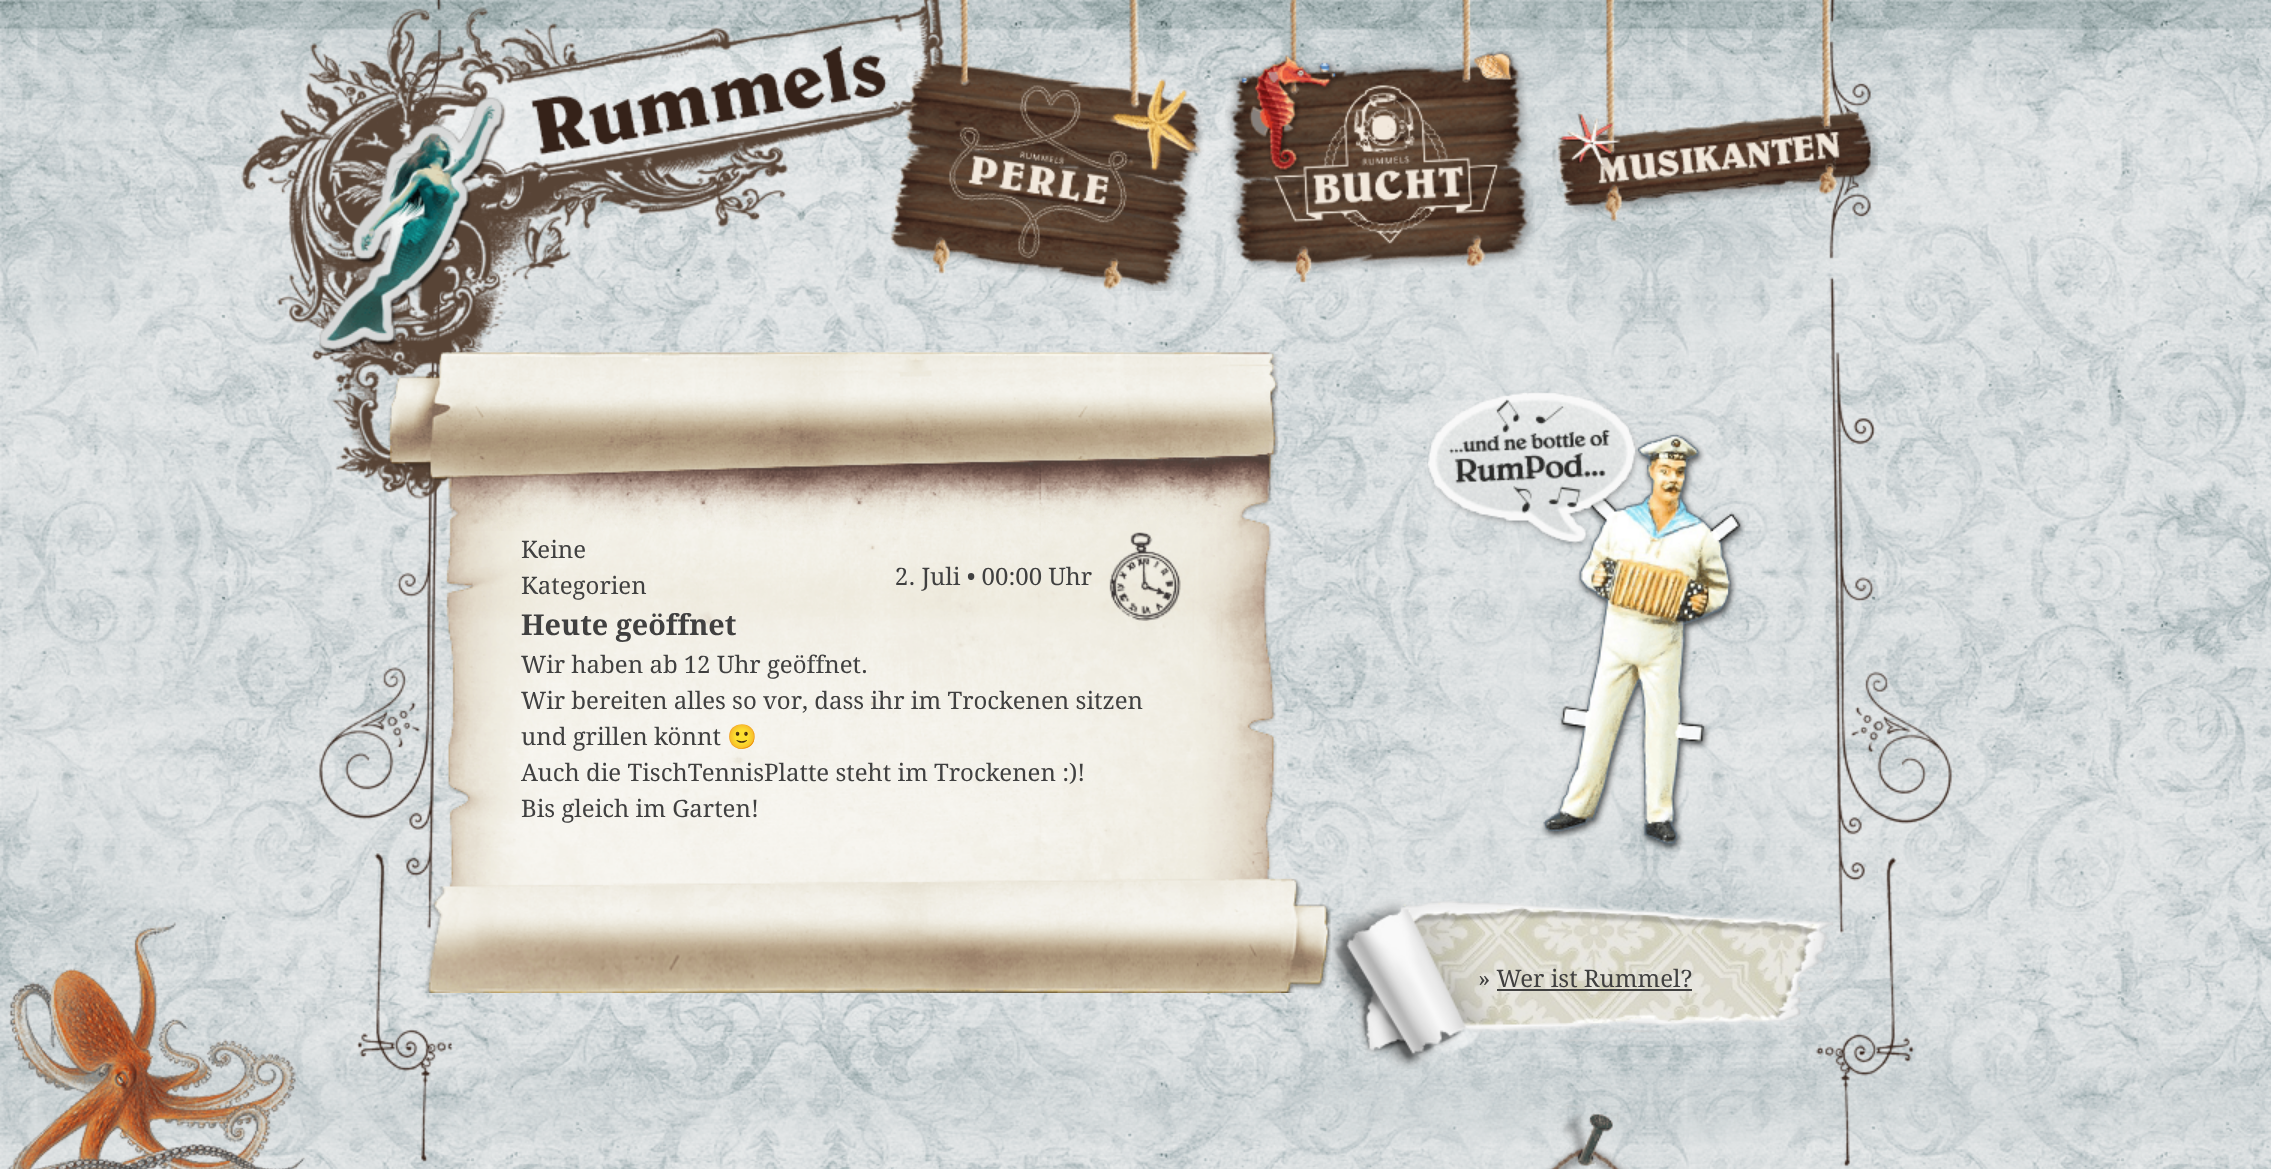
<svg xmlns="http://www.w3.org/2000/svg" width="2271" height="1169">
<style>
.a{font:24px Droid Serif;fill:#404040}
.b{font:bold 28.75px Droid Serif;fill:#404040}
.c{font:24px Noto Color Emoji;fill:#404040}
</style>
<rect width="100%" height="100%" fill="#fff"/>
<image href="1.png" x="0" y="0" width="2271" height="1169"/>
<image href="2.png" x="319" y="0" width="1633" height="1166"/>
<image href="3.png" x="235" y="0" width="709" height="500"/>
<image href="4.png" x="890" y="0" width="315" height="291"/>
<image href="5.png" x="1225" y="0" width="310" height="283"/>
<image href="6.png" x="1552" y="0" width="326" height="222"/>
<image href="7.png" x="446" y="352" width="831" height="641"/>
<image href="8.png" x="388" y="352" width="891" height="179"/>
<image href="9.png" x="1109" y="532" width="72" height="89"/>
<image href="10.png" x="425" y="877" width="906" height="116"/>
<image href="11.png" x="1427" y="392" width="318" height="460"/>
<image href="12.png" x="1330" y="899" width="503" height="170"/>
<path fill="#404040" d="M1497 989h195v2H1497z"/>
<image href="13.png" x="1545" y="1105" width="84" height="64"/>
<image href="14.png" x="7" y="922" width="298" height="247"/>
<text class="a" x="521" y="558">Keine</text>
<text class="a" x="521" y="594">Kategorien</text>
<text class="a" x="895" y="585">2. Juli • 00:00 Uhr</text>
<text class="b" x="521" y="635">Heute geöffnet</text>
<text class="a" x="521" y="673">Wir haben ab 12 Uhr geöffnet.</text>
<text class="a" x="521" y="709">Wir bereiten alles so vor, dass ihr im Trockenen sitzen</text>
<text class="a" x="521" y="745">und grillen könnt</text>
<text class="c" x="727" y="745">🙂</text>
<text class="a" x="521" y="781">Auch die TischTennisPlatte steht im Trockenen :)!</text>
<text class="a" x="521" y="817">Bis gleich im Garten!</text>
<text class="a" x="1478" y="987">» Wer ist Rummel?</text>
</svg>
